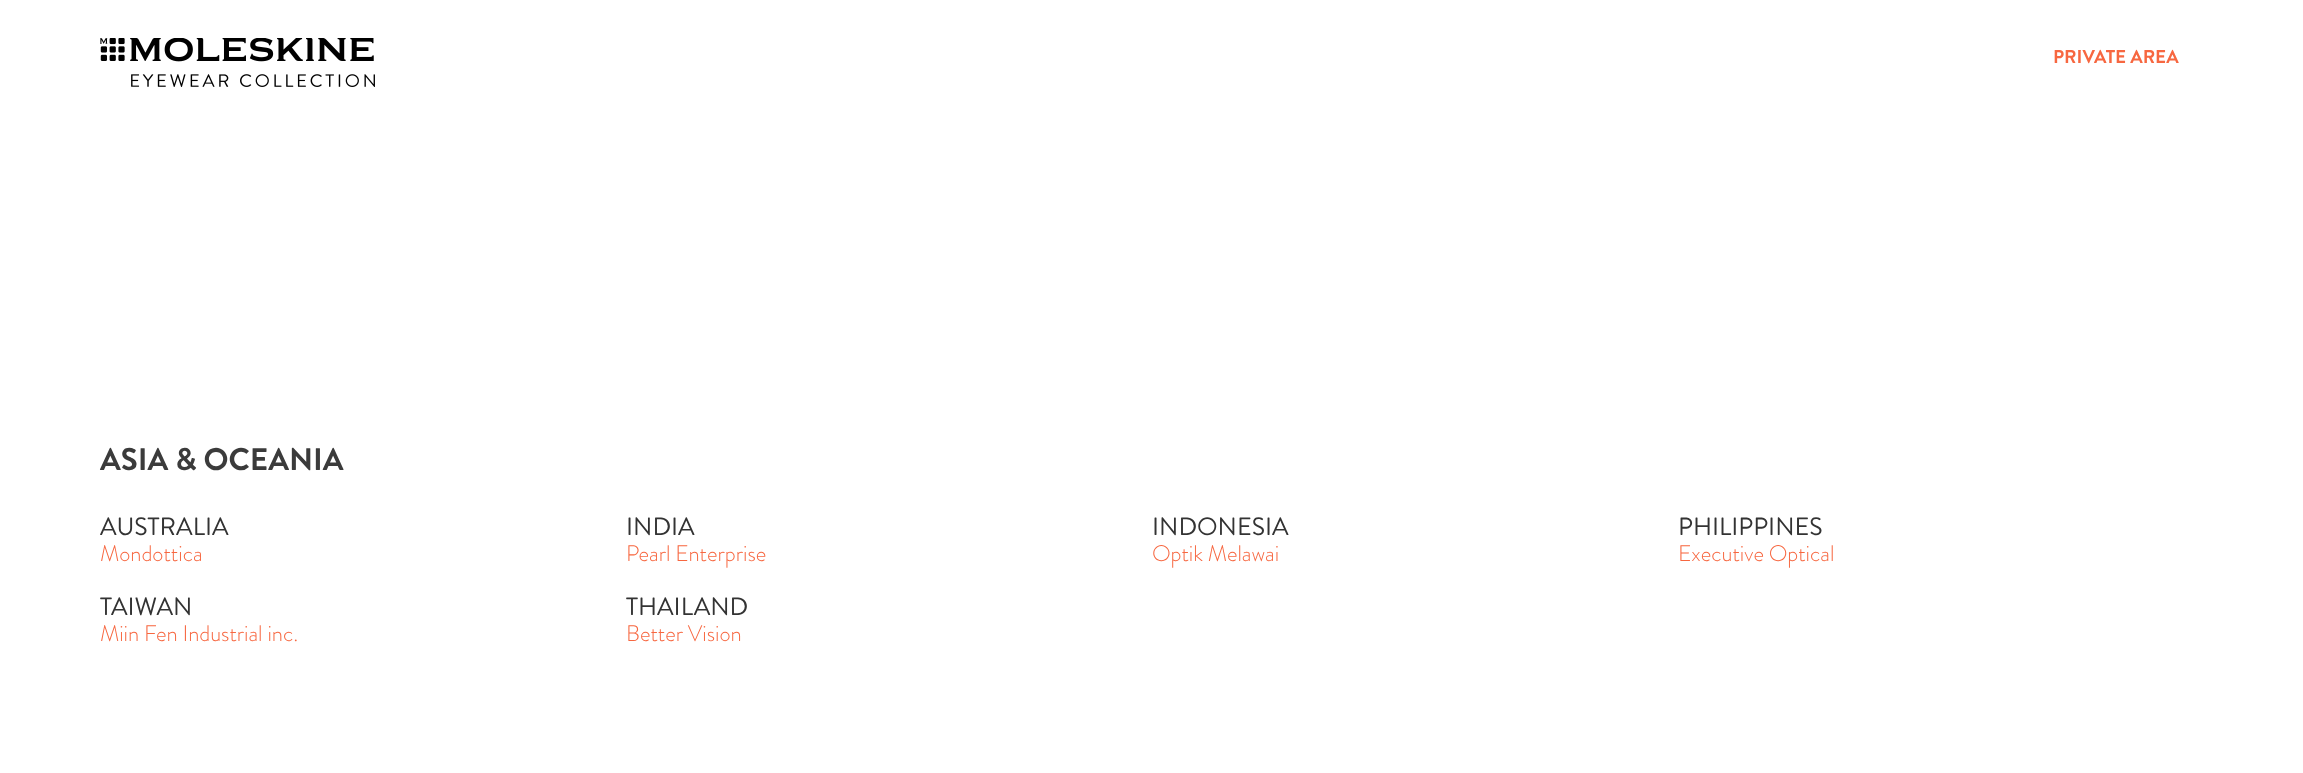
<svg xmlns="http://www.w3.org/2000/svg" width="2303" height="773">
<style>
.a{font:bold 18.75px Brandon Grotesque;fill:#f76740}
.b{font:bold 31.25px Brandon Grotesque;fill:#3b3b3b}
.c{font:25px Brandon Grotesque;fill:#333}
.d{font:300 22.5px Brandon Grotesque;fill:#f76740}
</style>
<rect width="100%" height="100%" fill="#fff"/>
<image href="1.png" x="100" y="38" width="275" height="49"/>
<text class="a" x="2053" y="63">PRIVATE AREA</text>
<text class="b" x="100" y="470">ASIA &amp; OCEANIA</text>
<text class="c" x="100" y="535">AUSTRALIA</text>
<text class="d" x="100" y="561">Mondottica</text>
<text class="c" x="626" y="535">INDIA</text>
<text class="d" x="626" y="561">Pearl Enterprise</text>
<text class="c" x="1152" y="535">INDONESIA</text>
<text class="d" x="1152" y="561">Optik Melawai</text>
<text class="c" x="1678" y="535">PHILIPPINES</text>
<text class="d" x="1678" y="561">Executive Optical</text>
<text class="c" x="100" y="615">TAIWAN</text>
<text class="d" x="100" y="641">Miin Fen Industrial inc.</text>
<text class="c" x="626" y="615">THAILAND</text>
<text class="d" x="626" y="641">Better Vision</text>
</svg>
